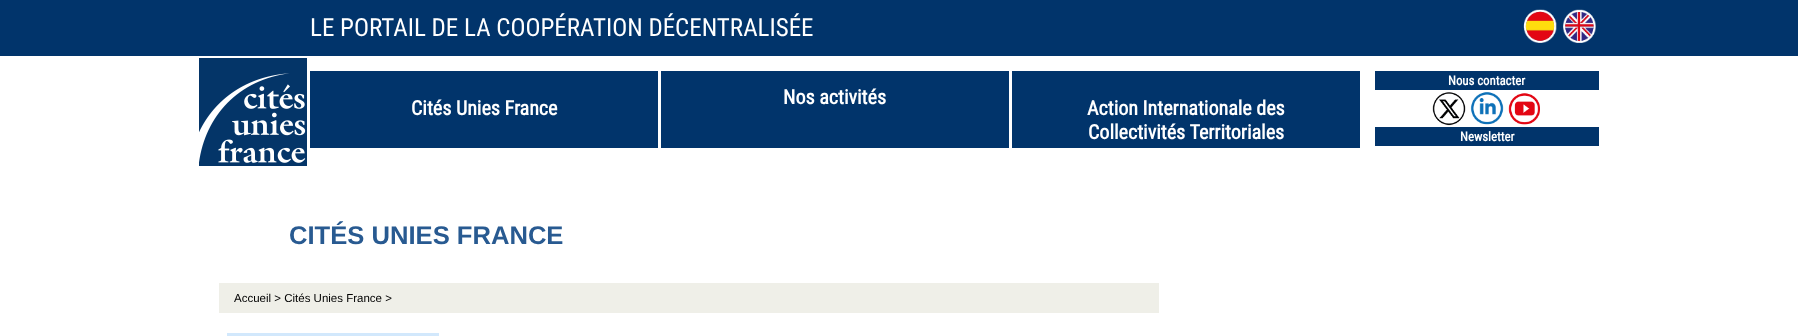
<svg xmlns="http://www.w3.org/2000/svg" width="1798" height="336">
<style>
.a{font:25px Roboto Condensed;fill:#fff}
.b{font:bold 20px Roboto Condensed;fill:#fff}
.c{font:bold 12.75px Roboto Condensed;fill:#fff}
.d{font:bold 25.6px Liberation Sans;fill:#285a91}
.e{font:11.5px Liberation Sans;fill:#000}
</style>
<rect width="100%" height="100%" fill="#fff"/>
<path fill="#01346b" d="M0 0h1798v56H0z"/>
<image href="1.png" x="1523" y="9" width="34" height="34"/>
<image href="2.png" x="1563" y="9" width="33" height="34"/>
<image href="3.png" x="199" y="58" width="108" height="108"/>
<path fill="#01346b" d="M661 71h348v77H661z"/>
<path fill="#01346b" d="M1375 71h224v19H1375z"/>
<image href="4.png" x="1432" y="92" width="34" height="34"/>
<image href="5.png" x="1470" y="92" width="34" height="33"/>
<image href="6.png" x="1508" y="93" width="32" height="32"/>
<path fill="#01346b" d="M1375 127h224v19H1375z"/>
<path fill="#01346b" d="M310 71h348v77H310z"/>
<path fill="#01346b" d="M1012 71h348v77H1012z"/>
<path fill="#efefe8" d="M219 283h940v30H219z"/>
<path fill="#d2e8fc" d="M227 333h212v3H227z"/>
<text class="a" x="310" y="36">LE PORTAIL DE LA COOPÉRATION DÉCENTRALISÉE</text>
<text class="b" x="783" y="104">Nos activités</text>
<text class="c" x="1448" y="85">Nous contacter</text>
<text class="c" x="1460" y="141">Newsletter</text>
<text class="b" x="411" y="115">Cités Unies France</text>
<text class="b" x="1087" y="115">Action Internationale des</text>
<text class="b" x="1088" y="139">Collectivités Territoriales</text>
<text class="d" x="289" y="244">CITÉS UNIES FRANCE</text>
<text class="e" x="234" y="302">Accueil &gt; Cités Unies France &gt;</text>
</svg>
